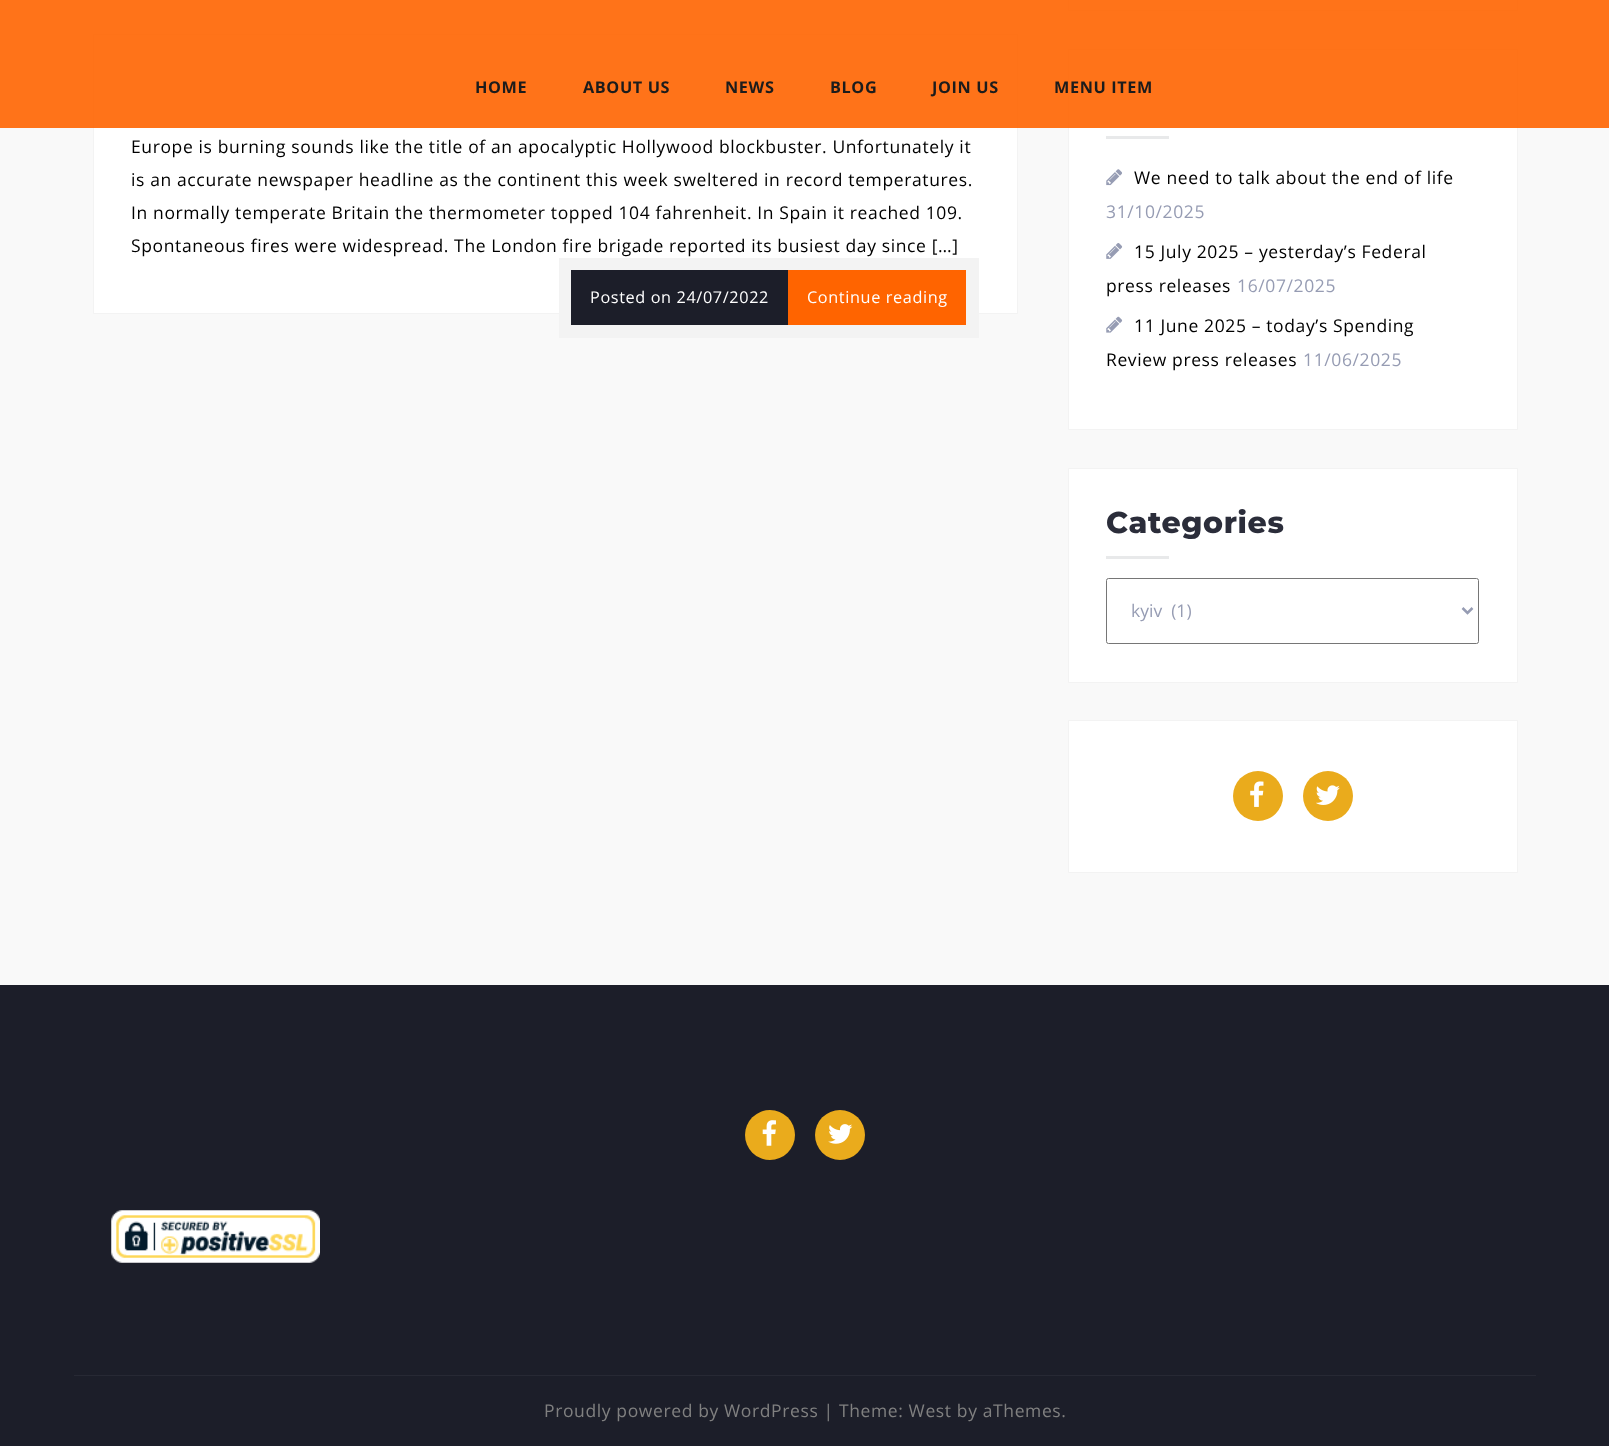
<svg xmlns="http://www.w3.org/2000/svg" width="1609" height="1446">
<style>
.a{font:bold 16.25px Open Sans;letter-spacing:0.62px;fill:#1c1c1c}
.b{font:17.5px Open Sans;letter-spacing:0.62px;fill:#000}
.c{font:16.25px Open Sans;letter-spacing:0.62px;fill:#fff}
.d{font:17.5px Open Sans;letter-spacing:0.62px;fill:#969cb3}
.e{font:800 30px Montserrat;letter-spacing:0.62px;fill:#2b2d3a}
.f{font:17.5px Open Sans;fill:#969cb3}
.g{font:17.5px Open Sans;letter-spacing:0.62px;fill:#808080}
</style>
<rect width="100%" height="100%" fill="#f9f9f9"/>
<path fill="#fff" stroke="#f3f3f3" d="M93.5 34.5h924v279H93.5z"/>
<path fill="#fff" stroke="#f3f3f3" d="M1068.5 -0.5h449v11H1068.5z"/>
<path fill="#fff" stroke="#f3f3f3" d="M1068.5 49.5h449v380H1068.5z"/>
<path fill="#ff6400e6" d="M0 0h1609v128H0z"/>
<path fill="#f3f3f3" d="M559 258h420v80H559z"/>
<path fill="#1c1e29" d="M571 270h217v55H571z"/>
<path fill="#ff6400" d="M788 270h178v55H788z"/>
<path fill="#e8e9ea" d="M1106 136h63v3H1106z"/>
<image href="1.png" x="1106" y="169" width="16" height="17"/>
<image href="2.png" x="1106" y="243" width="17" height="16"/>
<image href="3.png" x="1106" y="316" width="17" height="17"/>
<path fill="#fff" stroke="#f3f3f3" d="M1068.5 468.5h449v214H1068.5z"/>
<path fill="#e8e9ea" d="M1106 556h63v3H1106z"/>
<rect fill="none" stroke="#767676" x="1106.5" y="578.5" width="372" height="65" rx="2"/>
<path fill="none" stroke="#969cb3" stroke-width="2.5" d="M1462.5 608l5 5l5-5"/>
<path fill="#fff" stroke="#f3f3f3" d="M1068.5 720.5h449v152H1068.5z"/>
<circle fill="#eaab1c" cx="1258" cy="796" r="25"/>
<image href="4.png" x="1250" y="781" width="14" height="26"/>
<circle fill="#eaab1c" cx="1328" cy="796" r="25"/>
<image href="5.png" x="1316" y="785" width="24" height="20"/>
<path fill="#1c1e29" d="M0 985h1609v461H0z"/>
<circle fill="#eaab1c" cx="770" cy="1135" r="25"/>
<image href="6.png" x="762" y="1120" width="14" height="26"/>
<circle fill="#eaab1c" cx="840" cy="1135" r="25"/>
<image href="7.png" x="828" y="1124" width="25" height="20"/>
<image href="8.png" x="111" y="1210" width="209" height="53"/>
<path fill="#272934" d="M74 1375h1462v1H74z"/>
<text class="a" x="475" y="93">HOME</text>
<text class="a" x="583" y="93">ABOUT US</text>
<text class="a" x="725" y="93">NEWS</text>
<text class="a" x="830" y="93">BLOG</text>
<text class="a" x="932" y="93">JOIN US</text>
<text class="a" x="1054" y="93">MENU ITEM</text>
<text class="b" x="131" y="153">Europe is burning sounds like the title of an apocalyptic Hollywood blockbuster. Unfortunately it</text>
<text class="b" x="131" y="186">is an accurate newspaper headline as the continent this week sweltered in record temperatures.</text>
<text class="b" x="131" y="219">In normally temperate Britain the thermometer topped 104 fahrenheit. In Spain it reached 109.</text>
<text class="b" x="131" y="252">Spontaneous fires were widespread. The London fire brigade reported its busiest day since […]</text>
<text class="c" x="590" y="303">Posted on 24/07/2022</text>
<text class="c" x="807" y="303">Continue reading</text>
<text class="b" x="1134" y="184">We need to talk about the end of life</text>
<text class="d" x="1106" y="218">31/10/2025</text>
<text class="b" x="1134" y="258">15 July 2025 – yesterday’s Federal</text>
<text class="b" x="1106" y="292">press releases</text>
<text class="d" x="1237" y="292">16/07/2025</text>
<text class="b" x="1134" y="332">11 June 2025 – today’s Spending</text>
<text class="b" x="1106" y="366">Review press releases</text>
<text class="d" x="1303" y="366">11/06/2025</text>
<text class="e" x="1106" y="533">Categories</text>
<text class="f" xml:space="preserve" x="1131" y="617">kyiv  (1)</text>
<text class="g" x="544" y="1417">Proudly powered by WordPress | Theme: West by aThemes.</text>
</svg>
